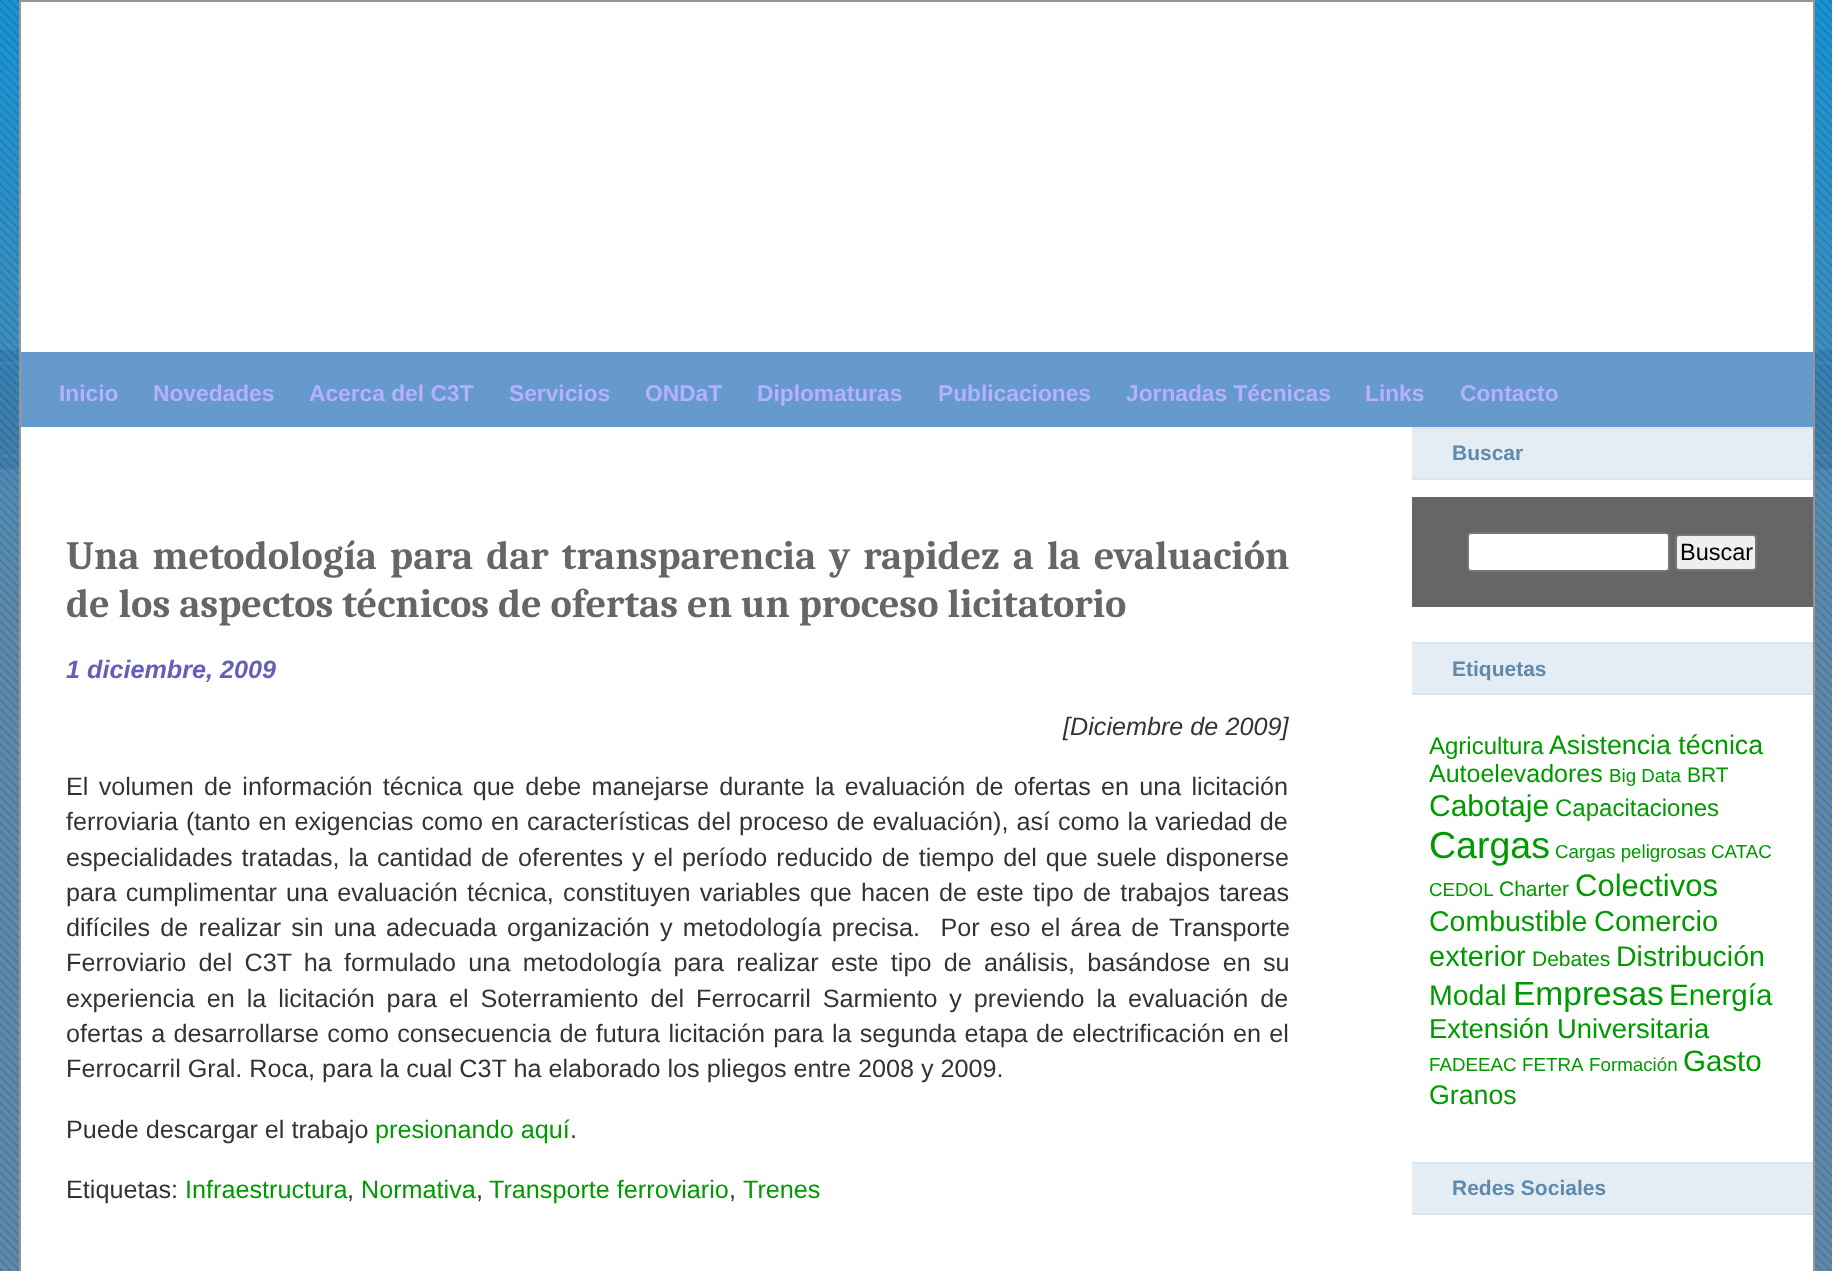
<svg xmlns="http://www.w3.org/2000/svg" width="1832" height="1271">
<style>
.a{font:bold 22.75px Liberation Sans;fill:#b7afff}
.b{font:bold 40.3px Caladea;fill:#666}
.c{font:italic bold 25.2px Liberation Sans;fill:#6460b8}
.d{font:italic 25.2px Liberation Sans;fill:#333}
.e{font:25.2px Liberation Sans;fill:#333}
.f{font:25.2px Liberation Sans;fill:#090}
.g{font:bold 21px Liberation Sans;fill:#608aac}
.h{font:23.5px Liberation Sans;fill:#000}
.i{font:24px Liberation Sans;fill:#090}
.j{font:26.75px Liberation Sans;fill:#090}
.k{font:25px Liberation Sans;fill:#090}
.l{font:18.75px Liberation Sans;fill:#090}
.m{font:21px Liberation Sans;fill:#090}
.n{font:30px Liberation Sans;fill:#090}
.o{font:37.5px Liberation Sans;fill:#090}
.p{font:31px Liberation Sans;fill:#090}
.q{font:28.5px Liberation Sans;fill:#090}
.r{font:29px Liberation Sans;fill:#090}
.s{font:33.5px Liberation Sans;fill:#090}
.t{font:29.5px Liberation Sans;fill:#090}
.u{font:27.4px Liberation Sans;fill:#090}
</style>
<rect width="100%" height="100%" fill="#fff"/>
<image href="1.png" x="0" y="656" width="1832" height="615"/>
<image href="2.png" x="0" y="0" width="1832" height="657"/>
<path fill="#fff" stroke="#959596" stroke-width="2" d="M20 1h1794v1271H20z"/>
<path fill="#69c" d="M21 352h1792v75H21z"/>
<path fill="#e5edf4" d="M1412 429h401v49H1412z"/>
<path fill="#dae6ef" d="M1412 427h401v2H1412z"/>
<path fill="#dae6ef" d="M1412 478h401v2H1412z"/>
<path fill="#666" d="M1412 497h401v110H1412z"/>
<rect fill="#fff" stroke="#767676" stroke-width="2" x="1468" y="533" width="201" height="38" rx="3"/>
<rect fill="#efefef" stroke="#767676" stroke-width="2" x="1676" y="535" width="80" height="35" rx="3"/>
<path fill="#e5edf4" d="M1412 644h401v49H1412z"/>
<path fill="#dae6ef" d="M1412 642h401v2H1412z"/>
<path fill="#dae6ef" d="M1412 693h401v2H1412z"/>
<path fill="#e5edf4" d="M1412 1164h401v49H1412z"/>
<path fill="#dae6ef" d="M1412 1162h401v2H1412z"/>
<path fill="#dae6ef" d="M1412 1213h401v2H1412z"/>
<text class="a" x="59" y="401">Inicio</text>
<text class="a" x="153" y="401">Novedades</text>
<text class="a" x="309" y="401">Acerca del C3T</text>
<text class="a" x="509" y="401">Servicios</text>
<text class="a" x="645" y="401">ONDaT</text>
<text class="a" x="757" y="401">Diplomaturas</text>
<text class="a" x="938" y="401">Publicaciones</text>
<text class="a" x="1126" y="401">Jornadas Técnicas</text>
<text class="a" x="1365" y="401">Links</text>
<text class="a" x="1460" y="401">Contacto</text>
<text class="b" x="66" y="569" word-spacing="4.25">Una metodología para dar transparencia y rapidez a la evaluación</text>
<text class="b" x="66" y="617">de los aspectos técnicos de ofertas en un proceso licitatorio</text>
<text class="c" x="66" y="678">1 diciembre, 2009</text>
<text class="d" x="1063" y="735">[Diciembre de 2009]</text>
<text class="e" x="66" y="795" word-spacing="3.25">El volumen de información técnica que debe manejarse durante la evaluación de ofertas en una licitación</text>
<text class="e" x="66" y="830" word-spacing="1">ferroviaria (tanto en exigencias como en características del proceso de evaluación), así como la variedad de</text>
<text class="e" x="66" y="866" word-spacing="1.9">especialidades tratadas, la cantidad de oferentes y el período reducido de tiempo del que suele disponerse</text>
<text class="e" x="66" y="901" word-spacing="2.25">para cumplimentar una evaluación técnica, constituyen variables que hacen de este tipo de trabajos tareas</text>
<text class="e" xml:space="preserve" x="66" y="936" word-spacing="3.25">difíciles de realizar sin una adecuada organización y metodología precisa.  Por eso el área de Transporte</text>
<text class="e" x="66" y="971" word-spacing="5.25">Ferroviario del C3T ha formulado una metodología para realizar este tipo de análisis, basándose en su</text>
<text class="e" x="66" y="1007" word-spacing="4.9">experiencia en la licitación para el Soterramiento del Ferrocarril Sarmiento y previendo la evaluación de</text>
<text class="e" x="66" y="1042" word-spacing="1.25">ofertas a desarrollarse como consecuencia de futura licitación para la segunda etapa de electrificación en el</text>
<text class="e" x="66" y="1077">Ferrocarril Gral. Roca, para la cual C3T ha elaborado los pliegos entre 2008 y 2009.</text>
<text class="e" x="66" y="1138">Puede descargar el trabajo</text>
<text class="f" x="375" y="1138">presionando aquí</text>
<text class="e" x="570" y="1138">.</text>
<text class="e" x="66" y="1198">Etiquetas:</text>
<text class="f" x="185" y="1198">Infraestructura</text>
<text class="e" x="347" y="1198">,</text>
<text class="f" x="361" y="1198">Normativa</text>
<text class="e" x="476" y="1198">,</text>
<text class="f" x="489" y="1198">Transporte ferroviario</text>
<text class="e" x="729" y="1198">,</text>
<text class="f" x="743" y="1198">Trenes</text>
<text class="g" x="1452" y="460">Buscar</text>
<text class="h" x="1680" y="560">Buscar</text>
<text class="g" x="1452" y="676">Etiquetas</text>
<text class="i" x="1429" y="754">Agricultura</text>
<text class="j" x="1549" y="754">Asistencia técnica</text>
<text class="k" x="1429" y="782">Autoelevadores</text>
<text class="l" x="1609" y="782">Big Data</text>
<text class="m" x="1687" y="782">BRT</text>
<text class="n" x="1429" y="816">Cabotaje</text>
<text class="i" x="1555" y="816">Capacitaciones</text>
<text class="o" x="1429" y="858">Cargas</text>
<text class="l" x="1555" y="858">Cargas peligrosas</text>
<text class="l" x="1711" y="858">CATAC</text>
<text class="l" x="1429" y="896">CEDOL</text>
<text class="m" x="1499" y="896">Charter</text>
<text class="p" x="1575" y="896">Colectivos</text>
<text class="q" x="1429" y="931">Combustible</text>
<text class="r" x="1594" y="931">Comercio</text>
<text class="r" x="1429" y="966">exterior</text>
<text class="m" x="1532" y="966">Debates</text>
<text class="q" x="1616" y="966">Distribución</text>
<text class="q" x="1429" y="1005">Modal</text>
<text class="s" x="1513" y="1005">Empresas</text>
<text class="t" x="1669" y="1005">Energía</text>
<text class="u" x="1429" y="1038">Extensión Universitaria</text>
<text class="l" x="1429" y="1071">FADEEAC</text>
<text class="l" x="1522" y="1071">FETRA</text>
<text class="l" x="1589" y="1071">Formación</text>
<text class="t" x="1683" y="1071">Gasto</text>
<text class="j" x="1429" y="1104">Granos</text>
<text class="g" x="1452" y="1195">Redes Sociales</text>
</svg>
